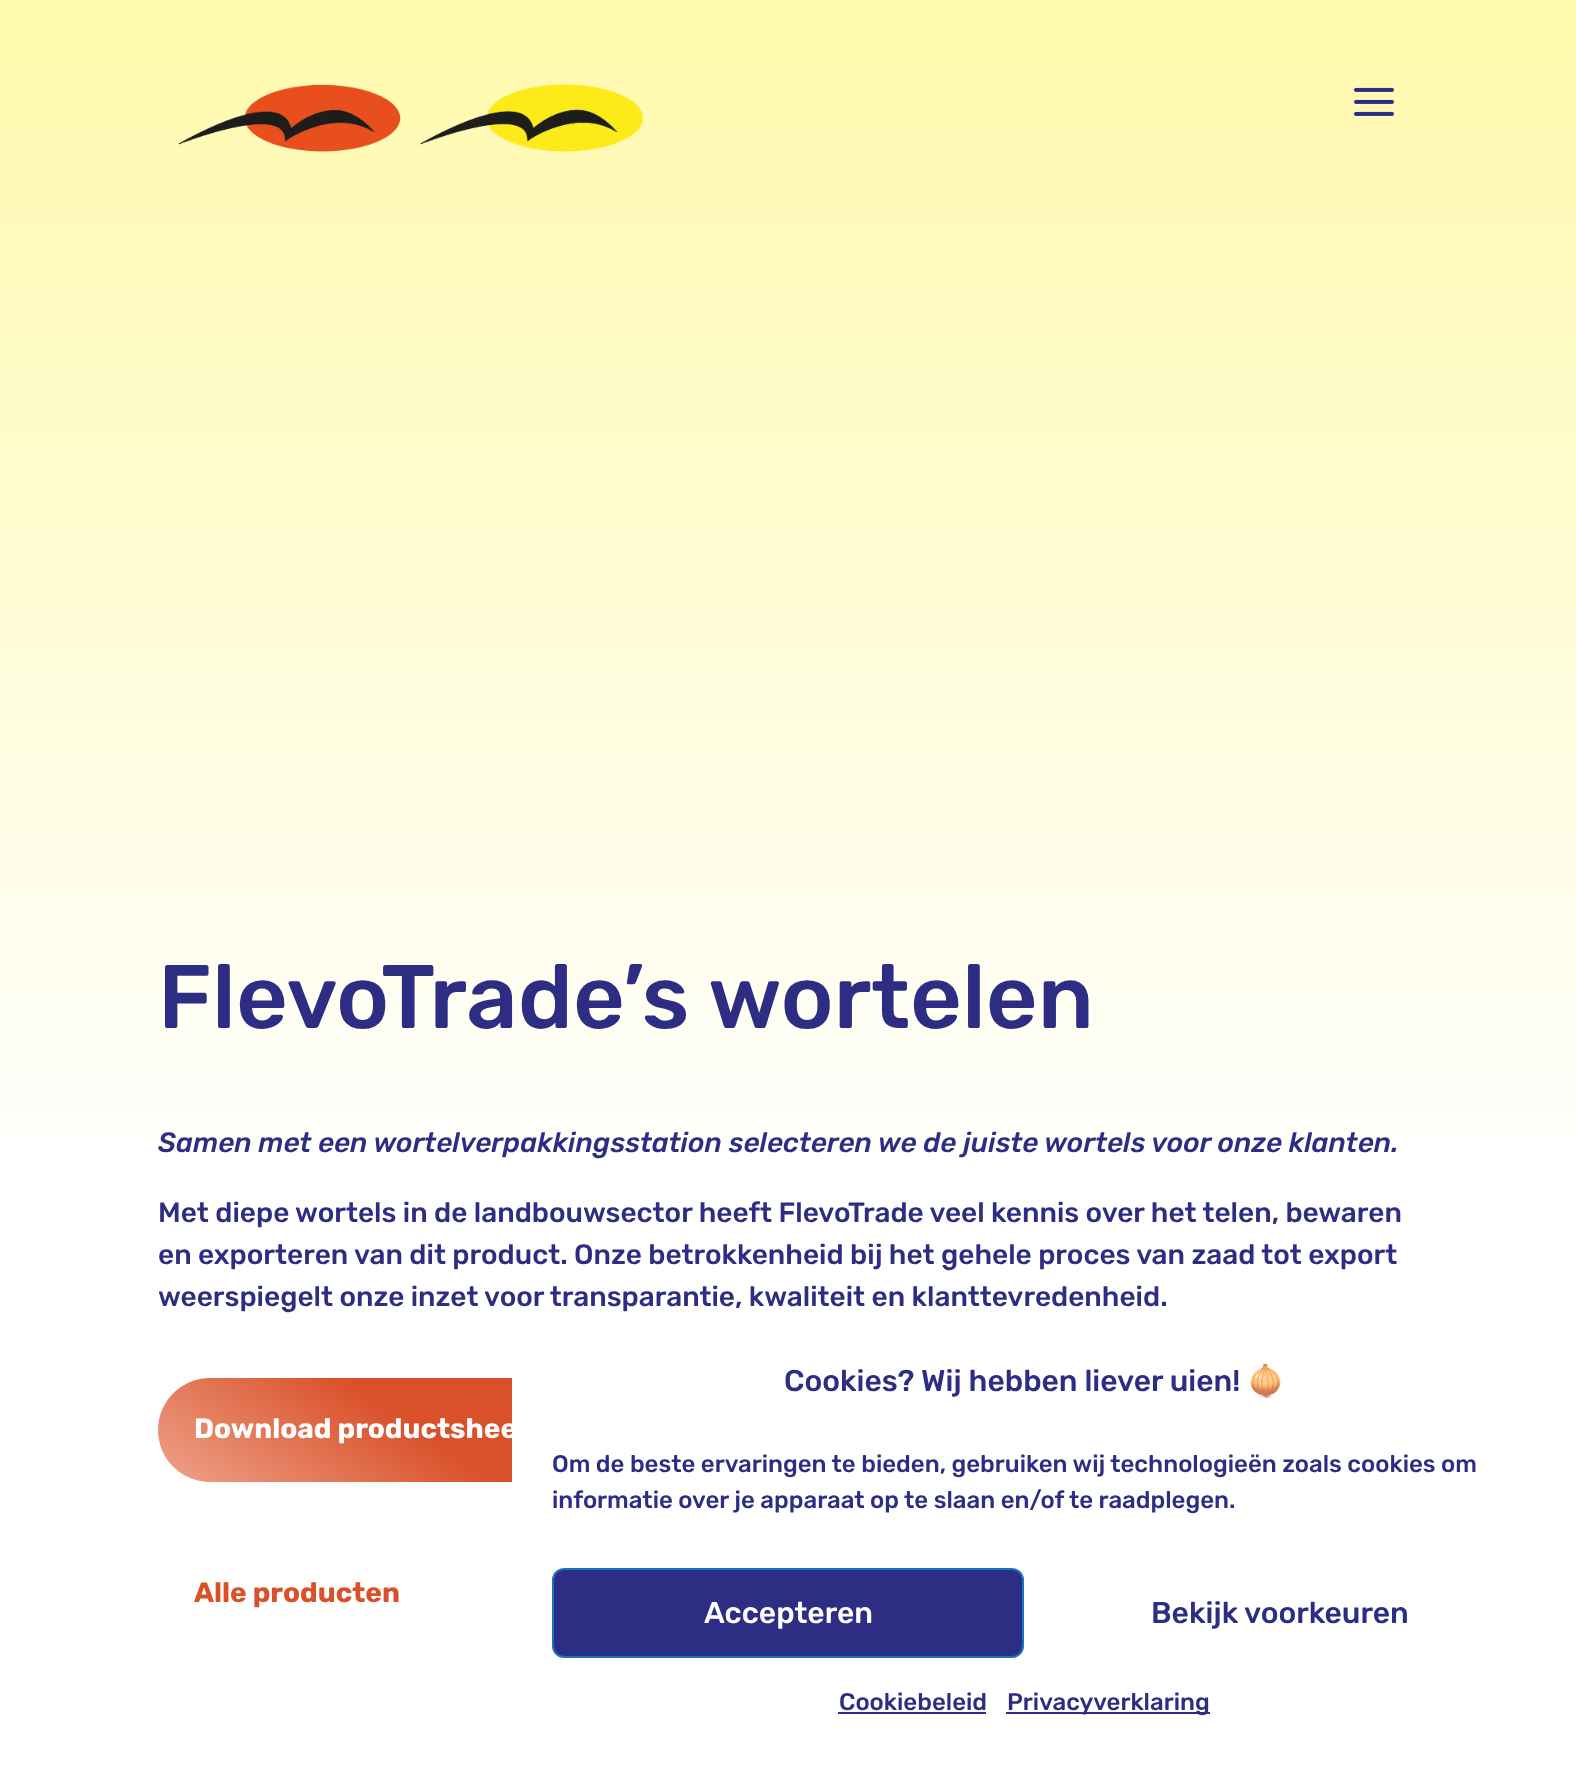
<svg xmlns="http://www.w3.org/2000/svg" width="1576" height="1777">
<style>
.a{font:300 90px Rubik;fill:#2d2e83}
.b{font:italic 300 28px Rubik;fill:#2d2e83}
.c{font:300 28px Rubik;fill:#2d2e83}
.d{font:300 28px 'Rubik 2';fill:#fff}
.e{font:300 28px 'Rubik 2';fill:#d95029}
.f{font:300 30px Rubik;fill:#2d2e83}
.g{font:30px Noto Color Emoji;fill:#2d2e83}
.h{font:300 24px Rubik;fill:#2d2e83}
.i{font:300 30px Rubik;fill:#fff}
</style>
<defs>
<linearGradient id="g1" gradientUnits="userSpaceOnUse" x1="788" y1="0" x2="788" y2="1706"><stop offset="0" stop-color="#fff9ab"/><stop offset="0.69" stop-color="#fff"/></linearGradient>
<linearGradient id="g2" gradientUnits="userSpaceOnUse" x1="450" y1="1300" x2="274" y2="1560"><stop offset="0.39" stop-color="#d95029"/><stop offset="1" stop-color="#eea38a"/></linearGradient>
</defs>
<rect width="100%" height="100%" fill="#fff"/>
<path fill="url(#g1)" d="M0 0h1576v1142H0z"/>
<image href="1.png" x="178" y="84" width="466" height="68"/>
<image href="2.png" x="1354" y="87" width="40" height="29"/>
<rect fill="url(#g2)" x="158" y="1378" width="408" height="104" rx="52"/>
<path fill="#fff" d="M512 1378h54v104H512z"/>
<rect fill="#2d2e83" stroke="#1e73be" stroke-width="2" x="553" y="1569" width="470" height="88" rx="11"/>
<path fill="#2d2e83" d="M838 1712h148v2H838z"/>
<path fill="#2d2e83" d="M1006 1712h204v2H1006z"/>
<text class="a" x="158" y="1028">FlevoTrade’s wortelen</text>
<text class="b" x="158" y="1152">Samen met een wortelverpakkingsstation selecteren we de juiste wortels voor onze klanten.</text>
<text class="c" x="158" y="1222">Met diepe wortels in de landbouwsector heeft FlevoTrade veel kennis over het telen, bewaren</text>
<text class="c" x="158" y="1264">en exporteren van dit product. Onze betrokkenheid bij het gehele proces van zaad tot export</text>
<text class="c" x="158" y="1306">weerspiegelt onze inzet voor transparantie, kwaliteit en klanttevredenheid.</text>
<text class="d" x="194" y="1438">Download productshee</text>
<text class="e" x="194" y="1602">Alle producten</text>
<text class="f" x="784" y="1391">Cookies? Wij hebben liever uien!</text>
<text class="g" x="1247" y="1391">🧅</text>
<text class="h" x="552" y="1472">Om de beste ervaringen te bieden, gebruiken wij technologieën zoals cookies om</text>
<text class="h" x="552" y="1508">informatie over je apparaat op te slaan en/of te raadplegen.</text>
<text class="i" x="704" y="1623">Accepteren</text>
<text class="f" x="1151" y="1623">Bekijk voorkeuren</text>
<text class="h" x="839" y="1710">Cookiebeleid</text>
<text class="h" x="1007" y="1710">Privacyverklaring</text>
</svg>
